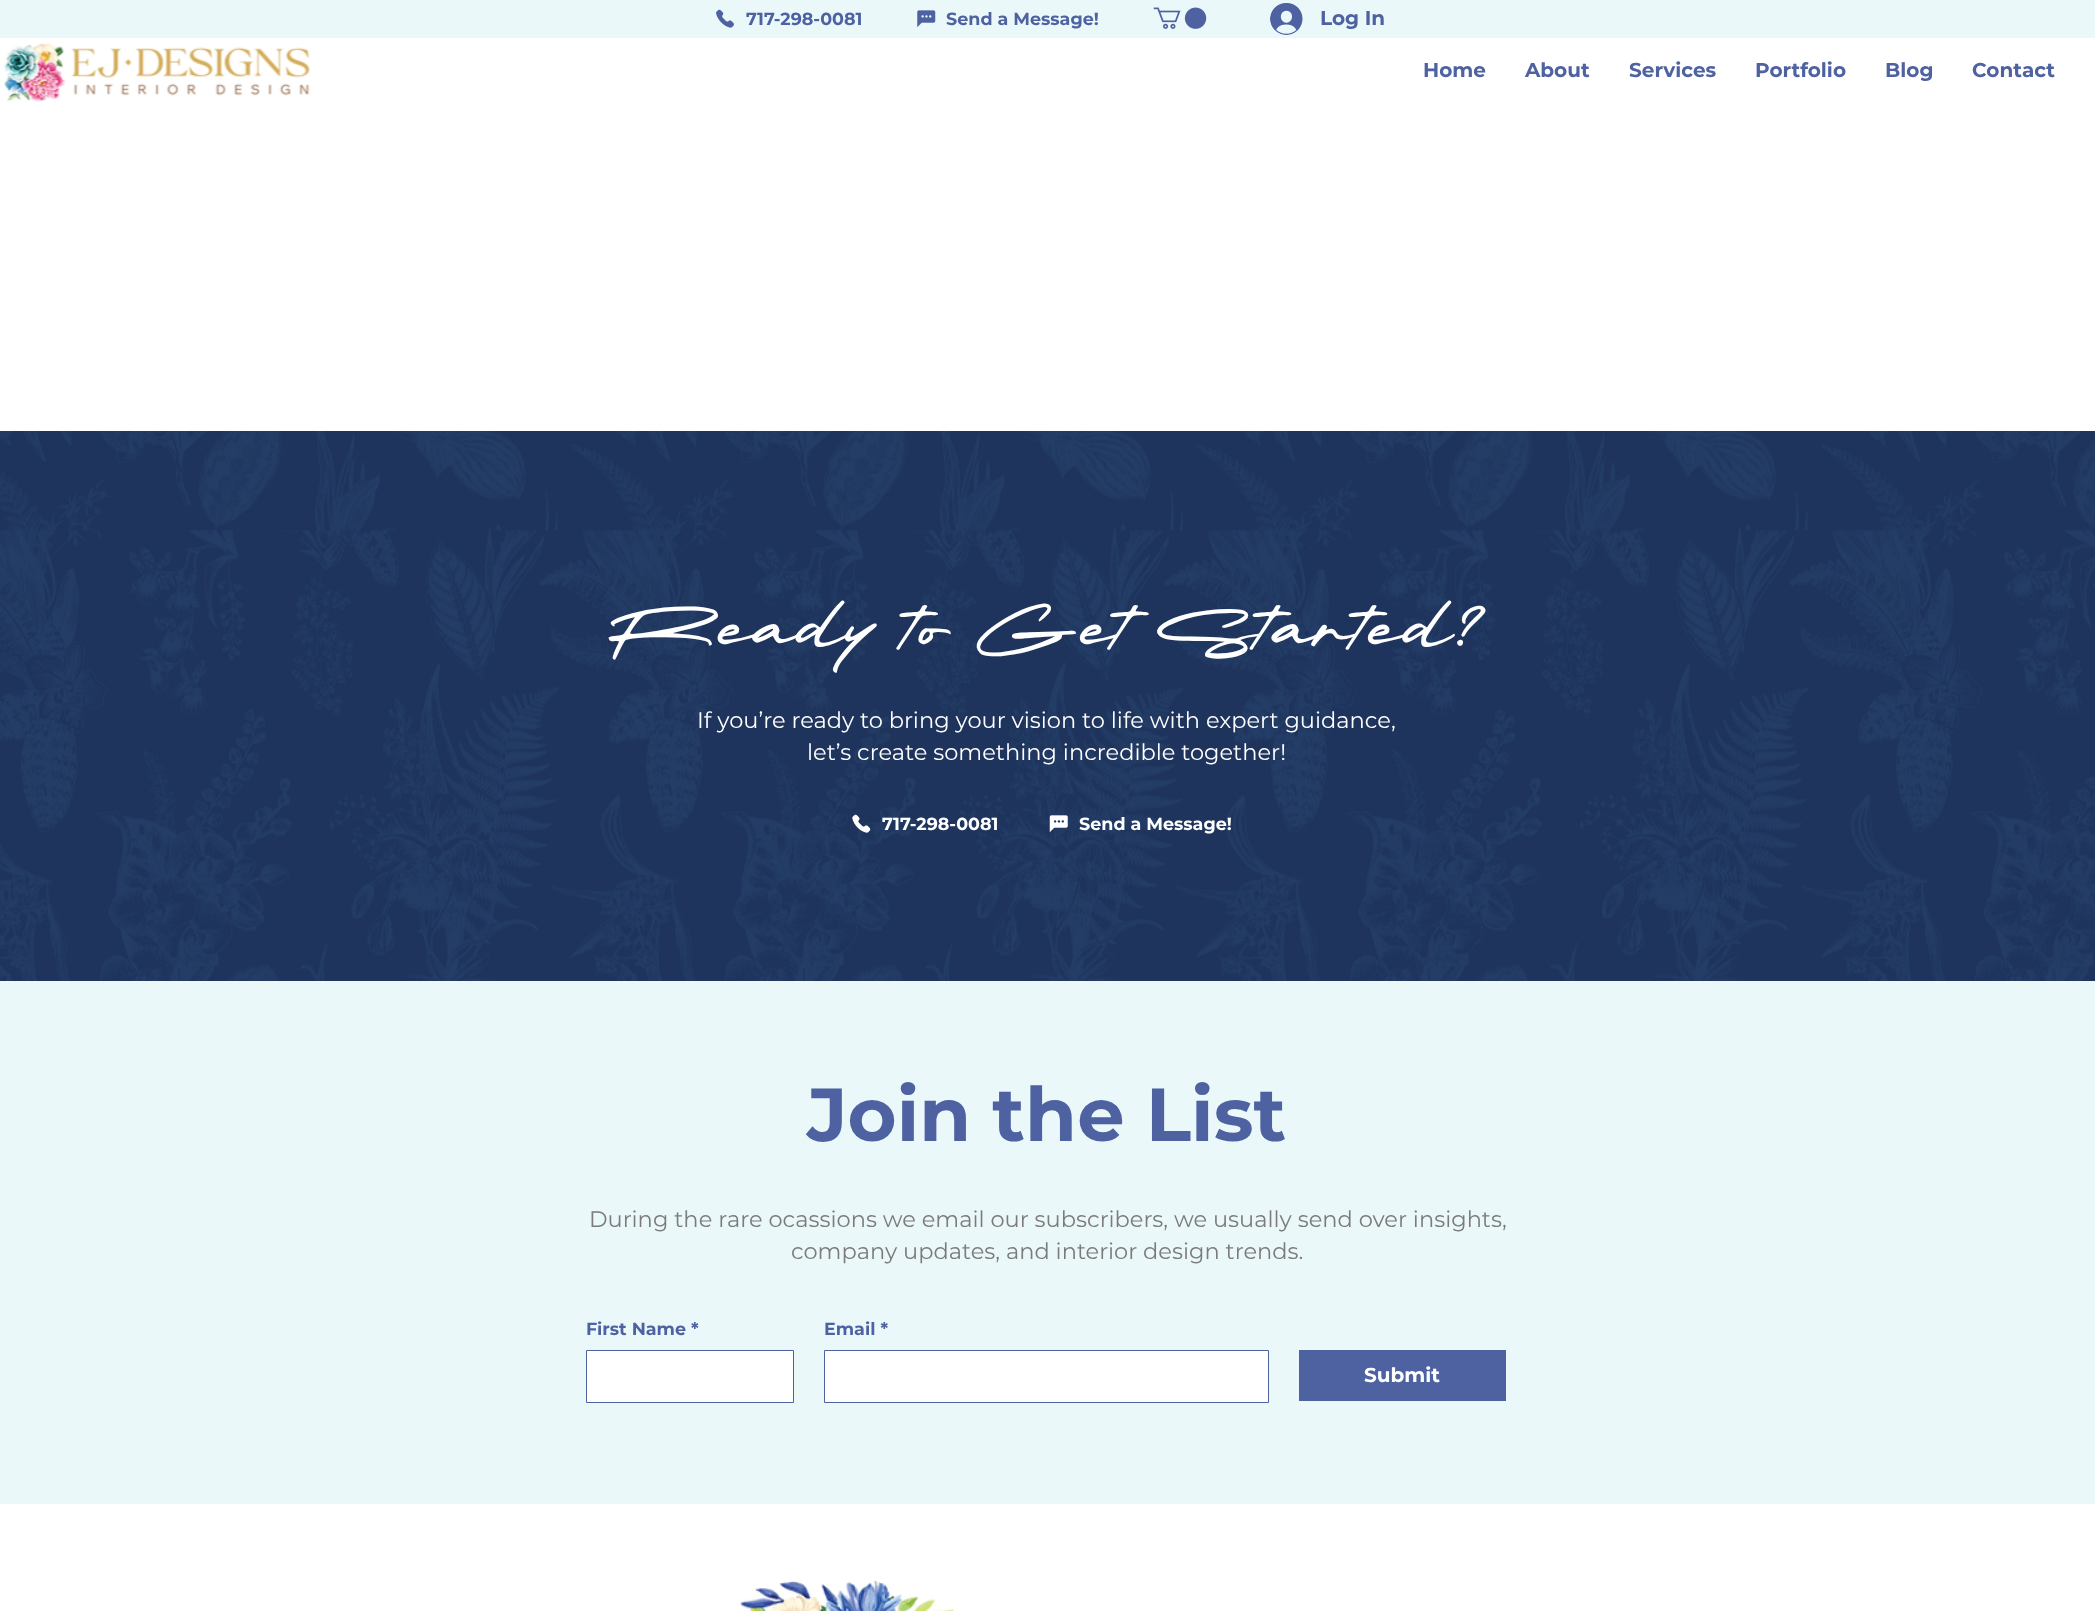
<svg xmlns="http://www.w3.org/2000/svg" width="2095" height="1611">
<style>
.a{font:bold 17.5px Montserrat;fill:#4e62a2}
.b{font:bold 20px Montserrat;fill:#4e62a2}
.c{font:75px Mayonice;fill:#fff}
.d{font:22.5px Montserrat;fill:#fff}
.e{font:bold 17.5px Montserrat;fill:#fff}
.f{font:bold 75px Montserrat;fill:#4e62a2}
.g{font:22.5px Montserrat;fill:#7b7b7b}
.h{font:bold 20px Montserrat;fill:#fff}
</style>
<rect width="100%" height="100%" fill="#fff"/>
<path fill="#eaf8fa" d="M0 0h2095v38H0z"/>
<image href="1.png" x="716" y="9" width="18" height="19"/>
<image href="2.png" x="917" y="10" width="19" height="17"/>
<image href="3.png" x="1153" y="7" width="54" height="22"/>
<image href="4.png" x="1270" y="3" width="33" height="32"/>
<image href="5.png" x="3" y="43" width="308" height="59"/>
<path fill="#1f345c" d="M0 431h2095v550H0z"/>
<image href="6.png" x="0" y="431" width="2095" height="550"/>
<image href="7.png" x="852" y="814" width="19" height="19"/>
<image href="8.png" x="1049" y="815" width="19" height="17"/>
<path fill="#eaf8fa" d="M0 981h2095v523H0z"/>
<path fill="#fff" stroke="#4e62a2" d="M586.5 1350.5h207v52H586.5z"/>
<path fill="#fff" stroke="#4e62a2" d="M824.5 1350.5h444v52H824.5z"/>
<path fill="#4e62a2" d="M1299 1350h207v51H1299z"/>
<image href="9.png" x="740" y="1580" width="214" height="31"/>
<text class="a" x="746" y="25">717-298-0081</text>
<text class="a" x="946" y="25">Send a Message!</text>
<text class="b" x="1320" y="25">Log In</text>
<text class="b" x="1423" y="77">Home</text>
<text class="b" x="1525" y="77">About</text>
<text class="b" x="1629" y="77">Services</text>
<text class="b" x="1755" y="77">Portfolio</text>
<text class="b" x="1885" y="77">Blog</text>
<text class="b" x="1972" y="77">Contact</text>
<text class="c" x="609" y="657">Ready to Get Started?</text>
<text class="d" x="697" y="728">If you’re ready to bring your vision to life with expert guidance,</text>
<text class="d" x="807" y="760">let’s create something incredible together!</text>
<text class="e" x="882" y="830">717-298-0081</text>
<text class="e" x="1079" y="830">Send a Message!</text>
<text class="f" x="807" y="1141">Join the List</text>
<text class="g" x="589" y="1227">During the rare ocassions we email our subscribers, we usually send over insights,</text>
<text class="g" x="791" y="1259">company updates, and interior design trends.</text>
<text class="a" x="586" y="1335">First Name *</text>
<text class="a" x="824" y="1335">Email *</text>
<text class="h" x="1364" y="1382">Submit</text>
</svg>
